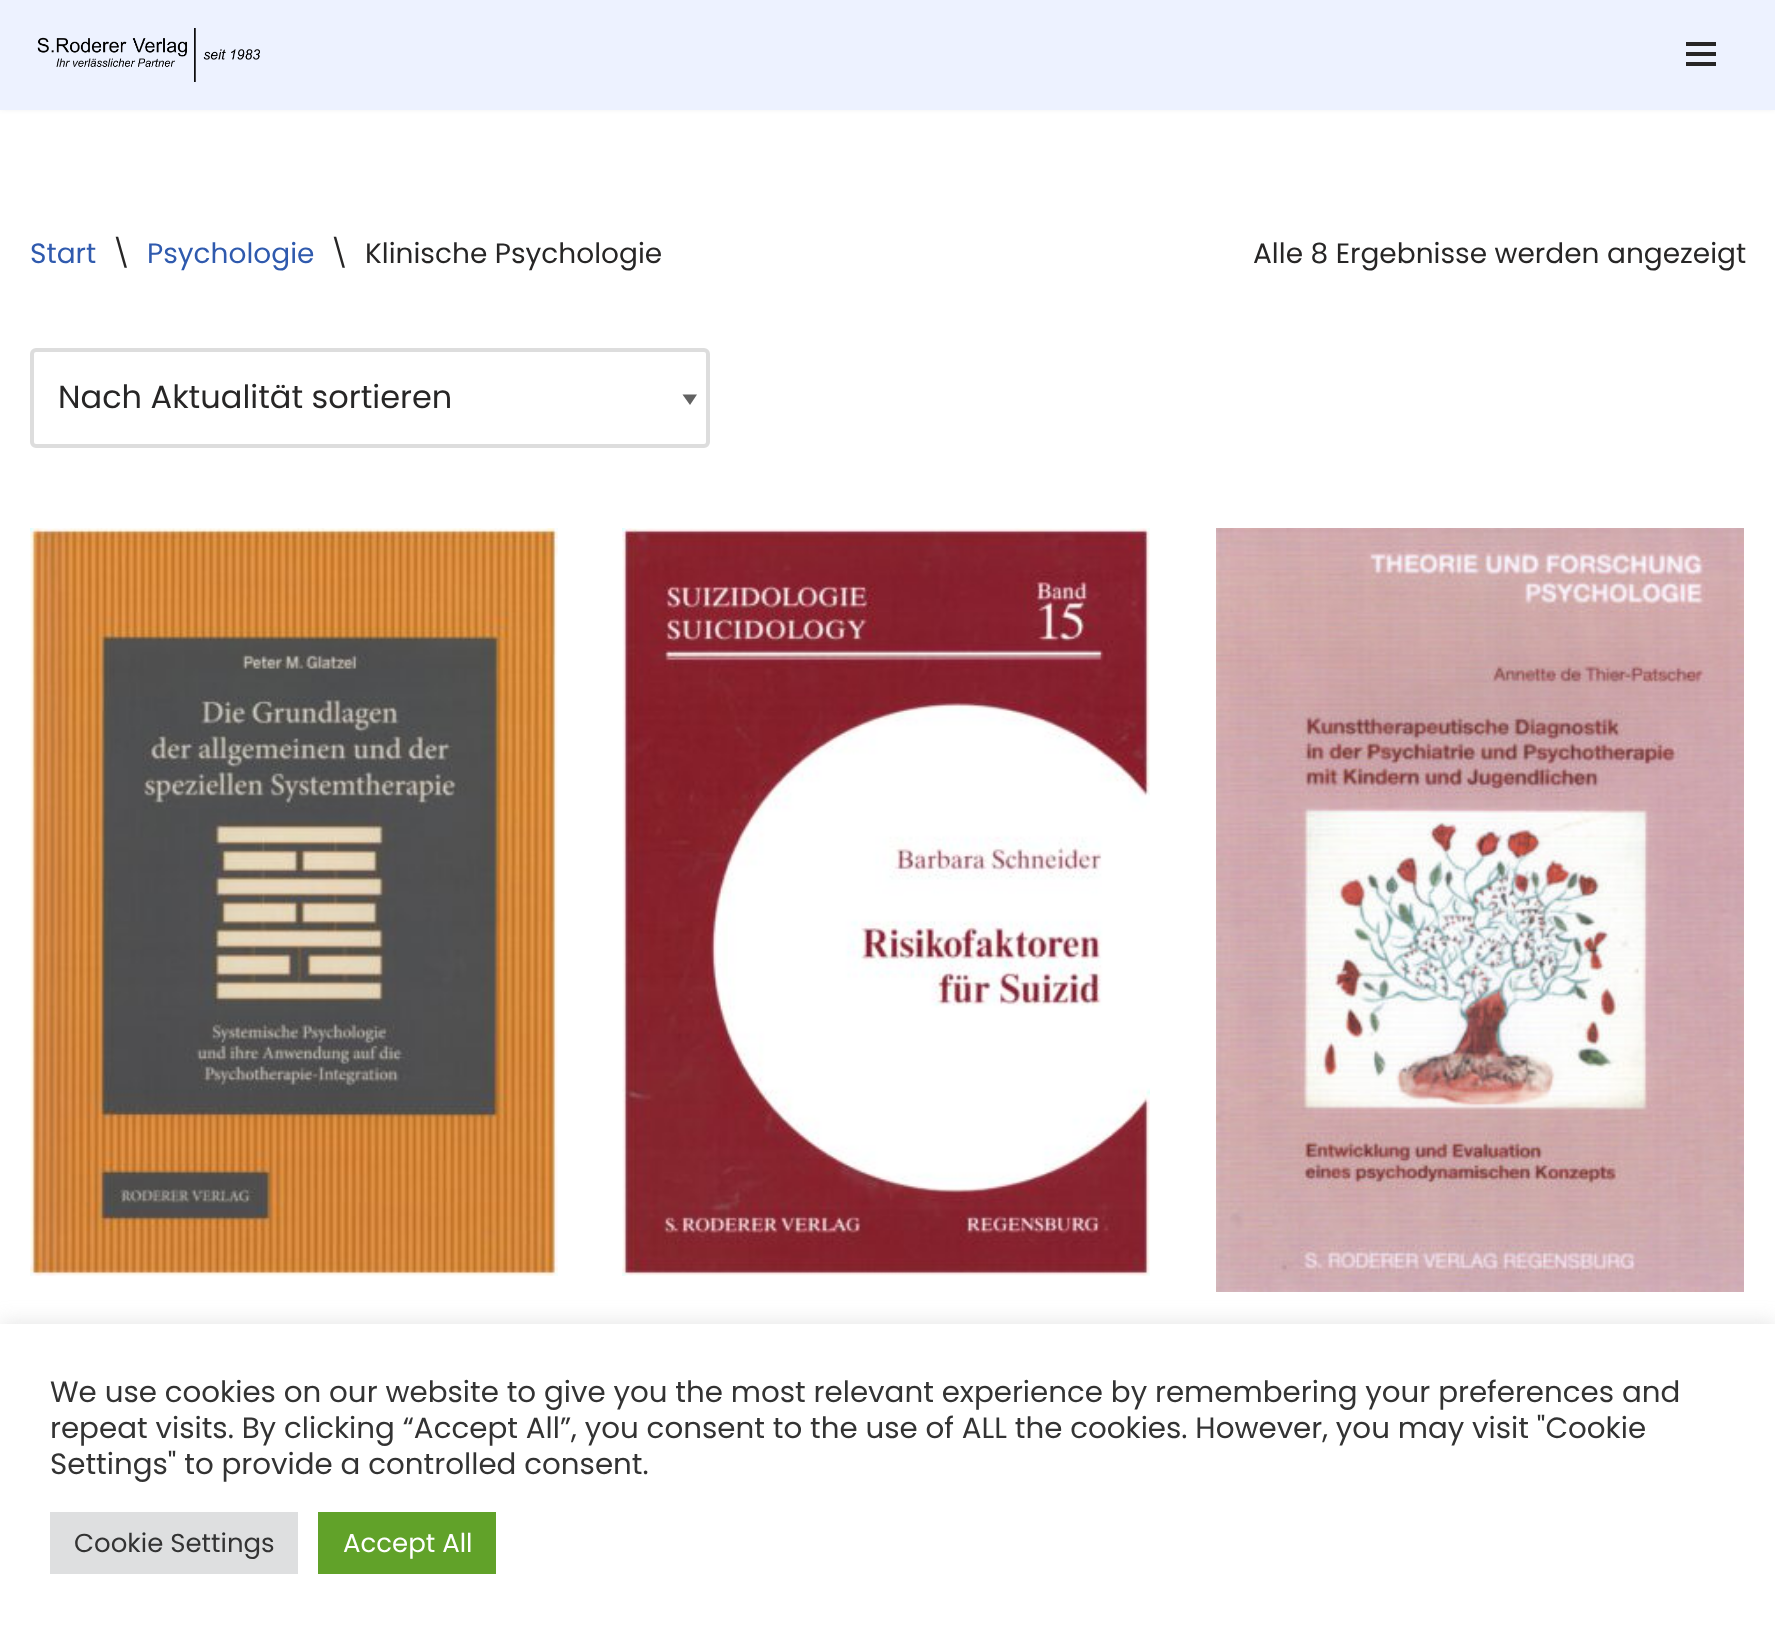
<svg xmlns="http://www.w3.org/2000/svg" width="1775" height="1633">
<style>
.a{font:28px Poppins;fill:#2f5aae}
.b{font:28px Poppins;fill:#272626}
.c{font:32px Poppins;fill:#272626}
.d{font:29.33px Poppins;fill:#333}
.e{font:26px Poppins;fill:#333}
.f{font:26px Poppins;fill:#fff}
</style>
<rect width="100%" height="100%" fill="#fff"/>
<path fill="#0000001a" filter="blur(3px)" d="M0 -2h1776v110H0z"/>
<path fill="#edf2ff" d="M0 0h1775v110H0z"/>
<image href="1.png" x="37" y="28" width="223" height="54"/>
<path fill="#272626" d="M1686 42h30v4H1686z"/>
<path fill="#272626" d="M1686 52h30v4H1686z"/>
<path fill="#272626" d="M1686 62h30v4H1686z"/>
<path fill="#626262" d="M697 394.5l-7 10.5l-7.5-10.5z"/>
<rect fill="none" stroke="#ddd" stroke-width="4" x="32" y="350" width="676" height="96" rx="4"/>
<image href="2.png" x="30" y="528" width="528" height="748"/>
<image href="3.png" x="622" y="528" width="528" height="748"/>
<image href="4.png" x="1216" y="528" width="528" height="764"/>
<path fill="#acabab4d" filter="blur(10px)" d="M0 1322h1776v310H0z"/>
<path fill="#fff" d="M0 1324h1775v309H0z"/>
<path fill="#dedfe0" d="M50 1512h248v62H50z"/>
<path fill="#61a229" d="M318 1512h178v62H318z"/>
<text class="a" x="30" y="263">Start</text>
<text class="b" x="112" y="263">\</text>
<text class="a" x="147" y="263">Psychologie</text>
<text class="b" x="330" y="263">\</text>
<text class="b" x="365" y="263">Klinische Psychologie</text>
<text class="b" x="1253" y="263">Alle 8 Ergebnisse werden angezeigt</text>
<text class="c" x="58" y="408">Nach Aktualität sortieren</text>
<text class="d" x="50" y="1402">We use cookies on our website to give you the most relevant experience by remembering your preferences and</text>
<text class="d" x="50" y="1438">repeat visits. By clicking “Accept All”, you consent to the use of ALL the cookies. However, you may visit "Cookie</text>
<text class="d" x="50" y="1474">Settings" to provide a controlled consent.</text>
<text class="e" x="74" y="1552">Cookie Settings</text>
<text class="f" x="343" y="1552">Accept All</text>
</svg>
